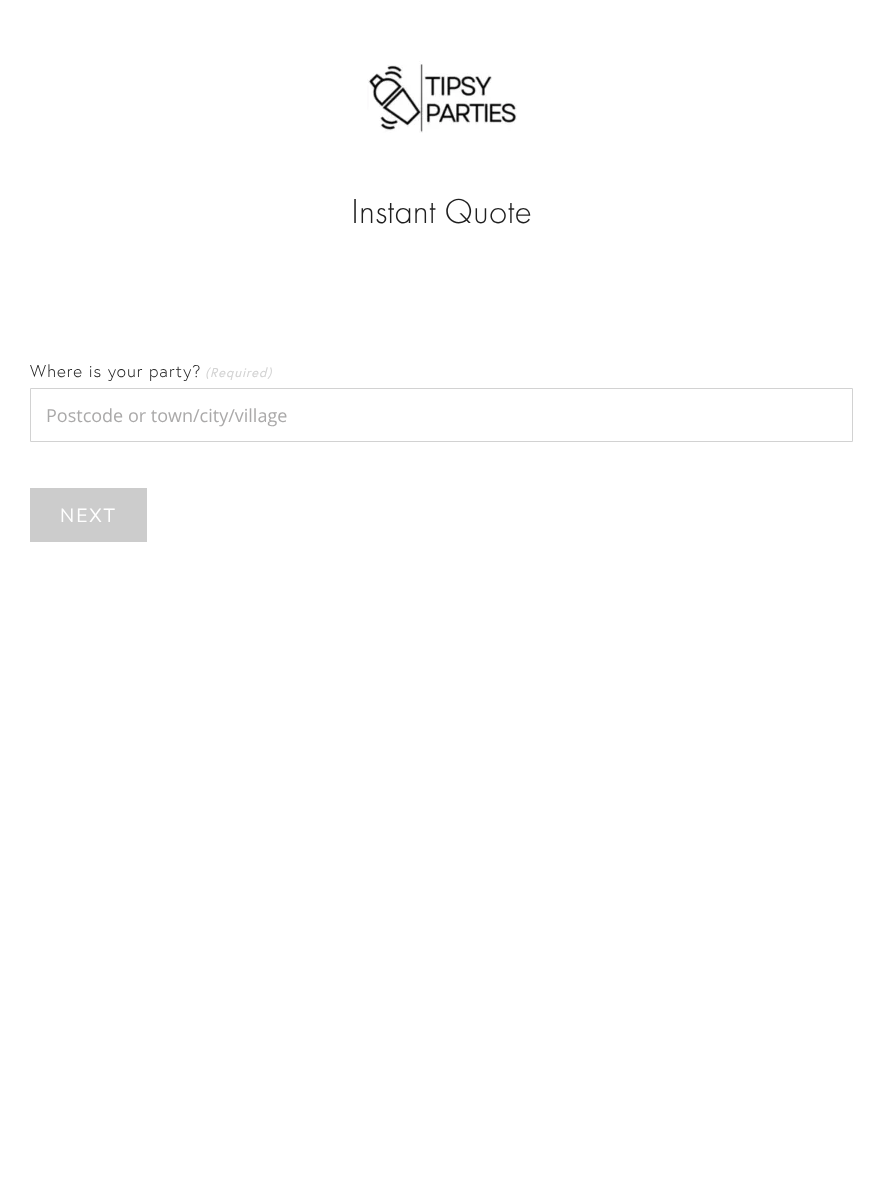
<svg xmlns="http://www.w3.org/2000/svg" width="883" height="1179">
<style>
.a{font:300 36px Futura PT;fill:#1f1f1f}
.b{font:300 17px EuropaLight;letter-spacing:1px;fill:#1f1f1f}
.c{font:italic 13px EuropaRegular;letter-spacing:1px;fill:#d3d3d3}
.d{font:18px Open Sans;fill:#aaa9a9}
.e{font:19px Mulish;letter-spacing:2px;fill:#fff}
</style>
<rect width="100%" height="100%" fill="#fff"/>
<image href="1.png" x="367" y="61" width="150" height="72"/>
<path fill="none" stroke="#d2d2d2" d="M30.5 388.5h822v53H30.5z"/>
<path fill="#ccc" d="M30 488h117v54H30z"/>
<text class="a" x="351" y="223">Instant Quote</text>
<text class="b" x="30" y="377">Where is your party?</text>
<text class="c" x="205" y="377">(Required)</text>
<text class="d" x="46" y="422">Postcode or town/city/village</text>
<text class="e" x="60" y="522">NEXT</text>
</svg>
